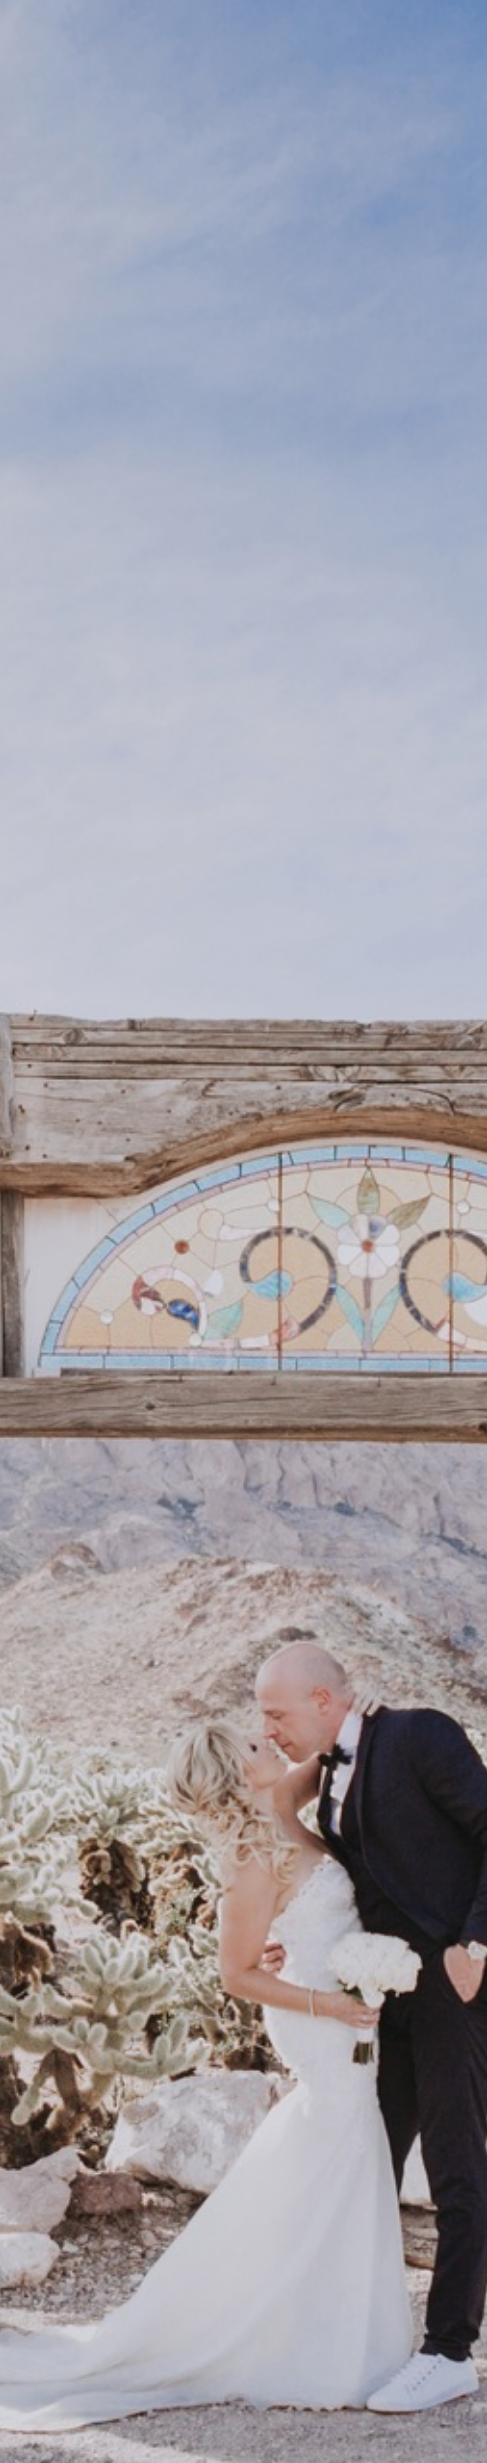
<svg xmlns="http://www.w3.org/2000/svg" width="487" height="2463">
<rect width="100%" height="100%" fill="#fff"/>
<image href="1.png" x="0" y="0" width="487" height="2463"/>
</svg>
